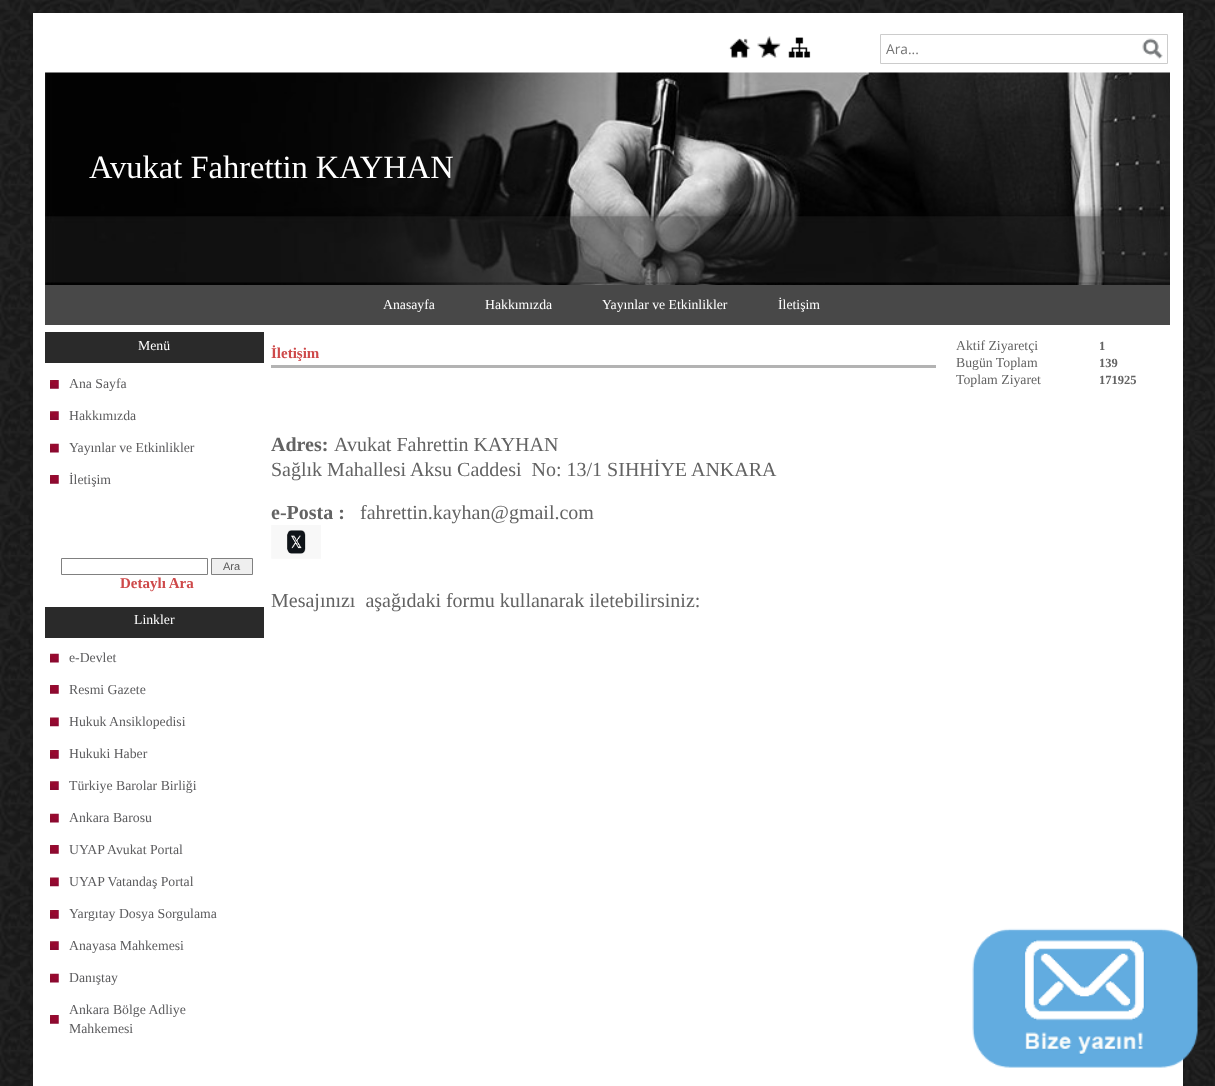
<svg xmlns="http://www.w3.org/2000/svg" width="1215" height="1086">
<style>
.a{font:13.75px Open Sans;fill:#757575}
.b{font:32.5px Liberation Serif;fill:#fff}
.c{font:13.75px Liberation Serif;fill:#fff}
.d{font:13.75px Liberation Serif;fill:#5c5c5e}
.e{font:11px Liberation Sans;fill:#585858}
.f{font:bold 15px Liberation Serif;fill:#ce494a}
.g{font:bold 20px Liberation Serif;fill:#636363}
.h{font:20px Liberation Serif;fill:#636363}
.i{font:13.75px Liberation Serif;fill:#636363}
.j{font:bold 12.5px Liberation Serif;fill:#636363}
</style>
<rect width="100%" height="100%" fill="#fff"/>
<image href="1.png" x="0" y="0" width="1215" height="1086"/>
<path fill="#fff" d="M33 13h1150v1073H33z"/>
<image href="2.png" x="728" y="38" width="23" height="20"/>
<image href="3.png" x="757" y="36" width="24" height="22"/>
<image href="4.png" x="788" y="37" width="23" height="21"/>
<path fill="none" stroke="#ccc" d="M880.5 34.5h287v29H880.5z"/>
<image href="5.png" x="1142" y="38" width="21" height="21"/>
<image href="6.png" x="45" y="72" width="1125" height="213"/>
<path fill="#484848" d="M45 285h1125v40H45z"/>
<path fill="#2a2a2a" d="M45 332h219v31H45z"/>
<image href="7.png" x="50" y="380" width="9" height="9"/>
<image href="8.png" x="50" y="411" width="9" height="9"/>
<image href="9.png" x="50" y="443" width="9" height="10"/>
<image href="7.png" x="50" y="475" width="9" height="9"/>
<path fill="none" stroke="#808080" d="M61.5 558.5h146v16H61.5z"/>
<path fill="#efefef" stroke="#808080" d="M211.5 558.5h41v16H211.5z"/>
<path fill="#2a2a2a" d="M45 607h219v31H45z"/>
<image href="9.png" x="50" y="653" width="9" height="10"/>
<image href="7.png" x="50" y="685" width="9" height="9"/>
<image href="10.png" x="50" y="717" width="9" height="10"/>
<image href="7.png" x="50" y="750" width="9" height="9"/>
<image href="11.png" x="50" y="781" width="9" height="9"/>
<image href="9.png" x="50" y="813" width="9" height="10"/>
<image href="7.png" x="50" y="845" width="9" height="9"/>
<image href="10.png" x="50" y="877" width="9" height="10"/>
<image href="7.png" x="50" y="910" width="9" height="9"/>
<image href="8.png" x="50" y="941" width="9" height="9"/>
<image href="9.png" x="50" y="973" width="9" height="10"/>
<image href="7.png" x="50" y="1015" width="9" height="9"/>
<path fill="#b3b3b3" d="M271 365h665v3H271z"/>
<image href="12.png" x="271" y="525" width="50" height="34"/>
<image href="13.png" x="972" y="928" width="226" height="140"/>
<text class="a" x="886" y="54">Ara...</text>
<text class="b" x="89" y="178">Avukat Fahrettin KAYHAN</text>
<text class="c" x="383" y="309">Anasayfa</text>
<text class="c" x="485" y="309">Hakkımızda</text>
<text class="c" x="602" y="309">Yayınlar ve Etkinlikler</text>
<text class="c" x="778" y="309">İletişim</text>
<text class="c" x="138" y="350">Menü</text>
<text class="d" x="69" y="388">Ana Sayfa</text>
<text class="d" x="69" y="420">Hakkımızda</text>
<text class="d" x="69" y="452">Yayınlar ve Etkinlikler</text>
<text class="d" x="69" y="484">İletişim</text>
<text class="e" x="223" y="570">Ara</text>
<text class="f" x="120" y="588">Detaylı Ara</text>
<text class="c" x="134" y="624">Linkler</text>
<text class="d" x="69" y="662">e-Devlet</text>
<text class="d" x="69" y="694">Resmi Gazete</text>
<text class="d" x="69" y="726">Hukuk Ansiklopedisi</text>
<text class="d" x="69" y="758">Hukuki Haber</text>
<text class="d" x="69" y="790">Türkiye Barolar Birliği</text>
<text class="d" x="69" y="822">Ankara Barosu</text>
<text class="d" x="69" y="854">UYAP Avukat Portal</text>
<text class="d" x="69" y="886">UYAP Vatandaş Portal</text>
<text class="d" x="69" y="918">Yargıtay Dosya Sorgulama</text>
<text class="d" x="69" y="950">Anayasa Mahkemesi</text>
<text class="d" x="69" y="982">Danıştay</text>
<text class="d" x="69" y="1014">Ankara Bölge Adliye</text>
<text class="d" x="69" y="1033">Mahkemesi</text>
<text class="f" x="271" y="358">İletişim</text>
<text class="g" x="271" y="451">Adres:</text>
<text class="h" x="334" y="451">Avukat Fahrettin KAYHAN</text>
<text class="h" xml:space="preserve" x="271" y="476">Sağlık Mahallesi Aksu Caddesi  No: 13/1 SIHHİYE ANKARA</text>
<text class="g" x="271" y="519">e-Posta :</text>
<text class="h" x="360" y="519">fahrettin.kayhan@gmail.com</text>
<text class="h" xml:space="preserve" x="271" y="607">Mesajınızı  aşağıdaki formu kullanarak iletebilirsiniz:</text>
<text class="i" x="956" y="350">Aktif Ziyaretçi</text>
<text class="j" x="1099" y="350">1</text>
<text class="i" x="956" y="367">Bugün Toplam</text>
<text class="j" x="1099" y="367">139</text>
<text class="i" x="956" y="384">Toplam Ziyaret</text>
<text class="j" x="1099" y="384">171925</text>
</svg>
